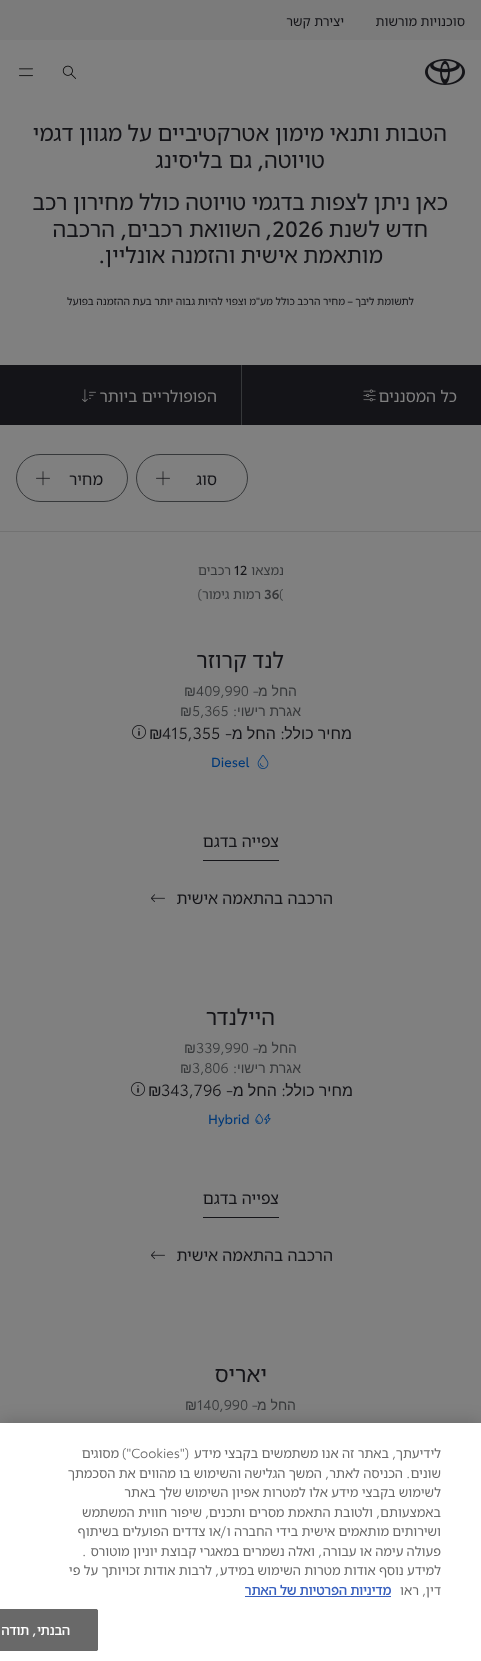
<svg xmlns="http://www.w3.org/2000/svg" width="481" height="1661">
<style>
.a{font:13px Noto Sans Hebrew;direction:rtl;fill:#141418}
.b{font:22px Noto Sans Hebrew;direction:rtl;fill:#141418}
.c{font:22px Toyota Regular;direction:rtl;fill:#141418}
.d{font:22px Toyota Regular;fill:#141418}
.e{font:10.4px Noto Sans Hebrew;direction:rtl;fill:#141418}
.f{font:10.4px Toyota Regular;direction:rtl;fill:#141418}
.g{font:16px Noto Sans Hebrew;direction:rtl;fill:#808080}
.h{font:16px Noto Sans Hebrew;direction:rtl;fill:#141418}
.i{font:13px Noto Sans Hebrew;direction:rtl;fill:#36383a}
.j{font:13px Toyota Regular;fill:#141418}
.k{font:13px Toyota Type;fill:#36383a}
.l{font:600 13px Toyota Type;fill:#36383a}
.m{font:13px Toyota Type;direction:rtl;fill:#36383a}
.n{font:14px Liberation Sans;direction:rtl;fill:#36383a}
.o{font:14px Toyota Type;direction:rtl;fill:#36383a}
.p{font:14px Toyota Type;fill:#36383a}
.q{font:14px Liberation Sans;fill:#36383a}
.r{font:16px Liberation Sans;direction:rtl;fill:#141418}
.s{font:16px Toyota Type;direction:rtl;fill:#141418}
.t{font:16px Toyota Type;fill:#141418}
.u{font:16px Liberation Sans;fill:#141418}
.v{font:13px Toyota Regular;fill:#003978}
.w{font:13px Noto Sans Hebrew;direction:rtl;fill:#696969}
.x{font:13px Toyota Type;direction:rtl;fill:#696969}
.y{font:13px Toyota Type;fill:#696969}
.z{font:bold 13px Noto Sans Hebrew;direction:rtl;fill:#3860be}
.a1{font:bold 13px Noto Sans Hebrew;direction:rtl;fill:#fff}
.b1{font:bold 13px Toyota Type;direction:rtl;fill:#fff}
</style>
<rect width="100%" height="100%" fill="#808080"/>
<path fill="#7b7b7b" d="M0 0h481v40H0z"/>
<image href="1.png" x="425" y="59" width="40" height="26"/>
<image href="2.png" x="62" y="65" width="14" height="14"/>
<image href="3.png" x="19" y="68" width="14" height="9"/>
<path fill="#141418" d="M0 365h481v60H0z"/>
<path fill="#36383a" d="M241 365h1v60H241z"/>
<image href="4.png" x="363" y="389" width="13" height="13"/>
<image href="5.png" x="82" y="389" width="14" height="13"/>
<rect fill="none" stroke="#36383a" x="136.5" y="454.5" width="111" height="47" rx="23.5"/>
<image href="6.png" x="156" y="471" width="14" height="15"/>
<rect fill="none" stroke="#36383a" x="16.5" y="454.5" width="111" height="47" rx="23.5"/>
<image href="6.png" x="36" y="471" width="14" height="15"/>
<path fill="#727272" d="M0 531h481v1H0z"/>
<image href="7.png" x="132" y="725" width="14" height="14"/>
<image href="8.png" x="257" y="755" width="12" height="14"/>
<path fill="#141418" d="M203 860h76v1H203z"/>
<image href="9.png" x="151" y="894" width="14" height="8"/>
<image href="7.png" x="131" y="1082" width="14" height="14"/>
<image href="10.png" x="255" y="1113" width="16" height="12"/>
<path fill="#141418" d="M203 1217h76v1H203z"/>
<image href="9.png" x="151" y="1251" width="14" height="8"/>
<path fill="#00000033" filter="blur(9px)" d="M0 1423h481v238H0z"/>
<path fill="#fff" d="M0 1423h481v238H0z"/>
<path fill="#3860be" d="M245 1596h146v1H245z"/>
<path fill="#696969" d="M0 1609h96c1 0 2 1 2 2v38c0 1-1 2-2 2h-96z"/>
<rect fill="none" stroke="#696969" x="-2.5" y="1609.5" width="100" height="41" rx="1.5"/>
<text class="a" x="465" y="26">סוכנויות מורשות</text>
<text class="a" x="344" y="26">יצירת קשר</text>
<text class="b" x="447" y="141" word-spacing="-0.5">הטבות ותנאי מימון אטרקטיביים על מגוון דגמי</text>
<text class="b" x="325" y="168">טויוטה</text>
<text class="c" x="264" y="168">,</text>
<text class="b" x="252" y="168">גם בליסינג</text>
<text class="b" x="448" y="210" word-spacing="-0.5">כאן ניתן לצפות בדגמי טויוטה כולל מחירון רכב</text>
<text class="b" x="428" y="237" word-spacing="-0.5">חדש לשנת</text>
<text class="d" x="272" y="237">2026</text>
<text class="c" x="272" y="237">,</text>
<text class="b" x="261" y="237">השוואת רכבים</text>
<text class="c" x="127" y="237">,</text>
<text class="b" x="115" y="237">הרכבה</text>
<text class="b" x="383" y="263" word-spacing="-0.5">מותאמת אישית והזמנה אונליין</text>
<text class="c" x="105" y="263">.</text>
<text class="e" x="414" y="305" word-spacing="-0.25">לתשומת ליבך</text>
<text class="f" x="353" y="305">–</text>
<text class="e" x="345" y="305" word-spacing="-0.25">מחיר הרכב כולל מע</text>
<text class="f" x="260" y="305">"</text>
<text class="e" x="256" y="305" word-spacing="-0.25">מ וצפוי להיות גבוה יותר בעת ההזמנה בפועל</text>
<text class="g" x="457" y="402">כל המסננים</text>
<text class="g" x="217" y="402">הפופולריים ביותר</text>
<text class="h" x="217" y="485">סוג</text>
<text class="h" x="103" y="485">מחיר</text>
<text class="i" x="284" y="575">נמצאו</text>
<text class="j" x="234" y="575">12</text>
<text class="i" x="231" y="575">רכבים</text>
<text class="k" x="279" y="599">(</text>
<text class="l" x="264" y="599">36</text>
<text class="i" x="261" y="599">רמות גימור</text>
<text class="m" x="202" y="599">)</text>
<text class="b" x="284" y="668" word-spacing="-0.5">לנד קרוזר</text>
<text class="n" x="297" y="696">החל מ</text>
<text class="o" x="259" y="696">-</text>
<text class="p" x="196" y="696">409,990</text>
<text class="q" x="184" y="696">₪</text>
<text class="n" x="301" y="716">אגרת רישוי</text>
<text class="o" x="237" y="716">:</text>
<text class="p" x="192" y="716">5,365</text>
<text class="q" x="180" y="716">₪</text>
<text class="r" x="352" y="739" word-spacing="-0.25">מחיר כולל</text>
<text class="s" x="285" y="739">:</text>
<text class="r" x="276" y="739" word-spacing="-0.25">החל מ</text>
<text class="s" x="232" y="739">-</text>
<text class="t" x="162" y="739">415,355</text>
<text class="u" x="149" y="739">₪</text>
<text class="v" x="211" y="767">Diesel</text>
<text class="h" x="279" y="847">צפייה בדגם</text>
<text class="h" x="333" y="904">הרכבה בהתאמה אישית</text>
<text class="b" x="275" y="1025">היילנדר</text>
<text class="n" x="297" y="1053">החל מ</text>
<text class="o" x="259" y="1053">-</text>
<text class="p" x="196" y="1053">339,990</text>
<text class="q" x="184" y="1053">₪</text>
<text class="n" x="301" y="1073">אגרת רישוי</text>
<text class="o" x="237" y="1073">:</text>
<text class="p" x="192" y="1073">3,806</text>
<text class="q" x="180" y="1073">₪</text>
<text class="r" x="353" y="1096" word-spacing="-0.25">מחיר כולל</text>
<text class="s" x="286" y="1096">:</text>
<text class="r" x="277" y="1096" word-spacing="-0.25">החל מ</text>
<text class="s" x="233" y="1096">-</text>
<text class="t" x="161" y="1096">343,796</text>
<text class="u" x="148" y="1096">₪</text>
<text class="v" x="208" y="1124">Hybrid</text>
<text class="h" x="279" y="1204">צפייה בדגם</text>
<text class="h" x="333" y="1261">הרכבה בהתאמה אישית</text>
<text class="b" x="267" y="1382">יאריס</text>
<text class="n" x="296" y="1410">החל מ</text>
<text class="o" x="258" y="1410">-</text>
<text class="p" x="197" y="1410">140,990</text>
<text class="q" x="185" y="1410">₪</text>
<text class="w" x="441" y="1458">לידיעתך</text>
<text class="x" x="396" y="1458">,</text>
<text class="w" x="389" y="1458" word-spacing="-0.25">באתר זה אנו משתמשים בקבצי מידע</text>
<text class="x" x="189" y="1458">("</text>
<text class="y" x="131" y="1458">Cookies</text>
<text class="x" x="131" y="1458">")</text>
<text class="w" x="119" y="1458">מסוגים</text>
<text class="w" x="441" y="1478">שונים</text>
<text class="x" x="410" y="1478">.</text>
<text class="w" x="403" y="1478" word-spacing="-0.25">הכניסה לאתר</text>
<text class="x" x="329" y="1478">,</text>
<text class="w" x="322" y="1478" word-spacing="-0.25">המשך הגלישה והשימוש בו מהווים את הסכמתך</text>
<text class="w" x="441" y="1497" word-spacing="-0.25">לשימוש בקבצי מידע אלו למטרות אפיון השימוש שלך באתר</text>
<text class="w" x="441" y="1517">באמצעותם</text>
<text class="x" x="380" y="1517">,</text>
<text class="w" x="373" y="1517">ולטובת התאמת מסרים ותכנים</text>
<text class="x" x="209" y="1517">,</text>
<text class="w" x="202" y="1517">שיפור חווית המשתמש</text>
<text class="w" x="441" y="1536" word-spacing="-0.25">ושירותים מותאמים אישית בידי החברה ו</text>
<text class="w" x="221" y="1536" word-spacing="-0.25">או צדדים הפועלים בשיתוף</text>
<text class="x" x="226" y="1536">/</text>
<text class="w" x="441" y="1556" word-spacing="-0.25">פעולה עימה או עבורה</text>
<text class="x" x="322" y="1556">,</text>
<text class="w" x="315" y="1556" word-spacing="-0.25">ואלה נשמרים במאגרי קבוצת יוניון מוטורס</text>
<text class="x" x="86" y="1556">.</text>
<text class="w" x="441" y="1575" word-spacing="-0.25">למידע נוסף אודות מטרות השימוש במידע</text>
<text class="x" x="219" y="1575">,</text>
<text class="w" x="212" y="1575" word-spacing="-0.25">לרבות אודות זכויותך על פי</text>
<text class="w" x="441" y="1595">דין</text>
<text class="x" x="426" y="1595">,</text>
<text class="w" x="419" y="1595">ראו</text>
<text class="z" x="391" y="1595" word-spacing="-0.25">מדיניות הפרטיות של האתר</text>
<text class="a1" x="70" y="1635">הבנתי</text>
<text class="b1" x="36" y="1635">,</text>
<text class="a1" x="29" y="1635">תודה</text>
</svg>
